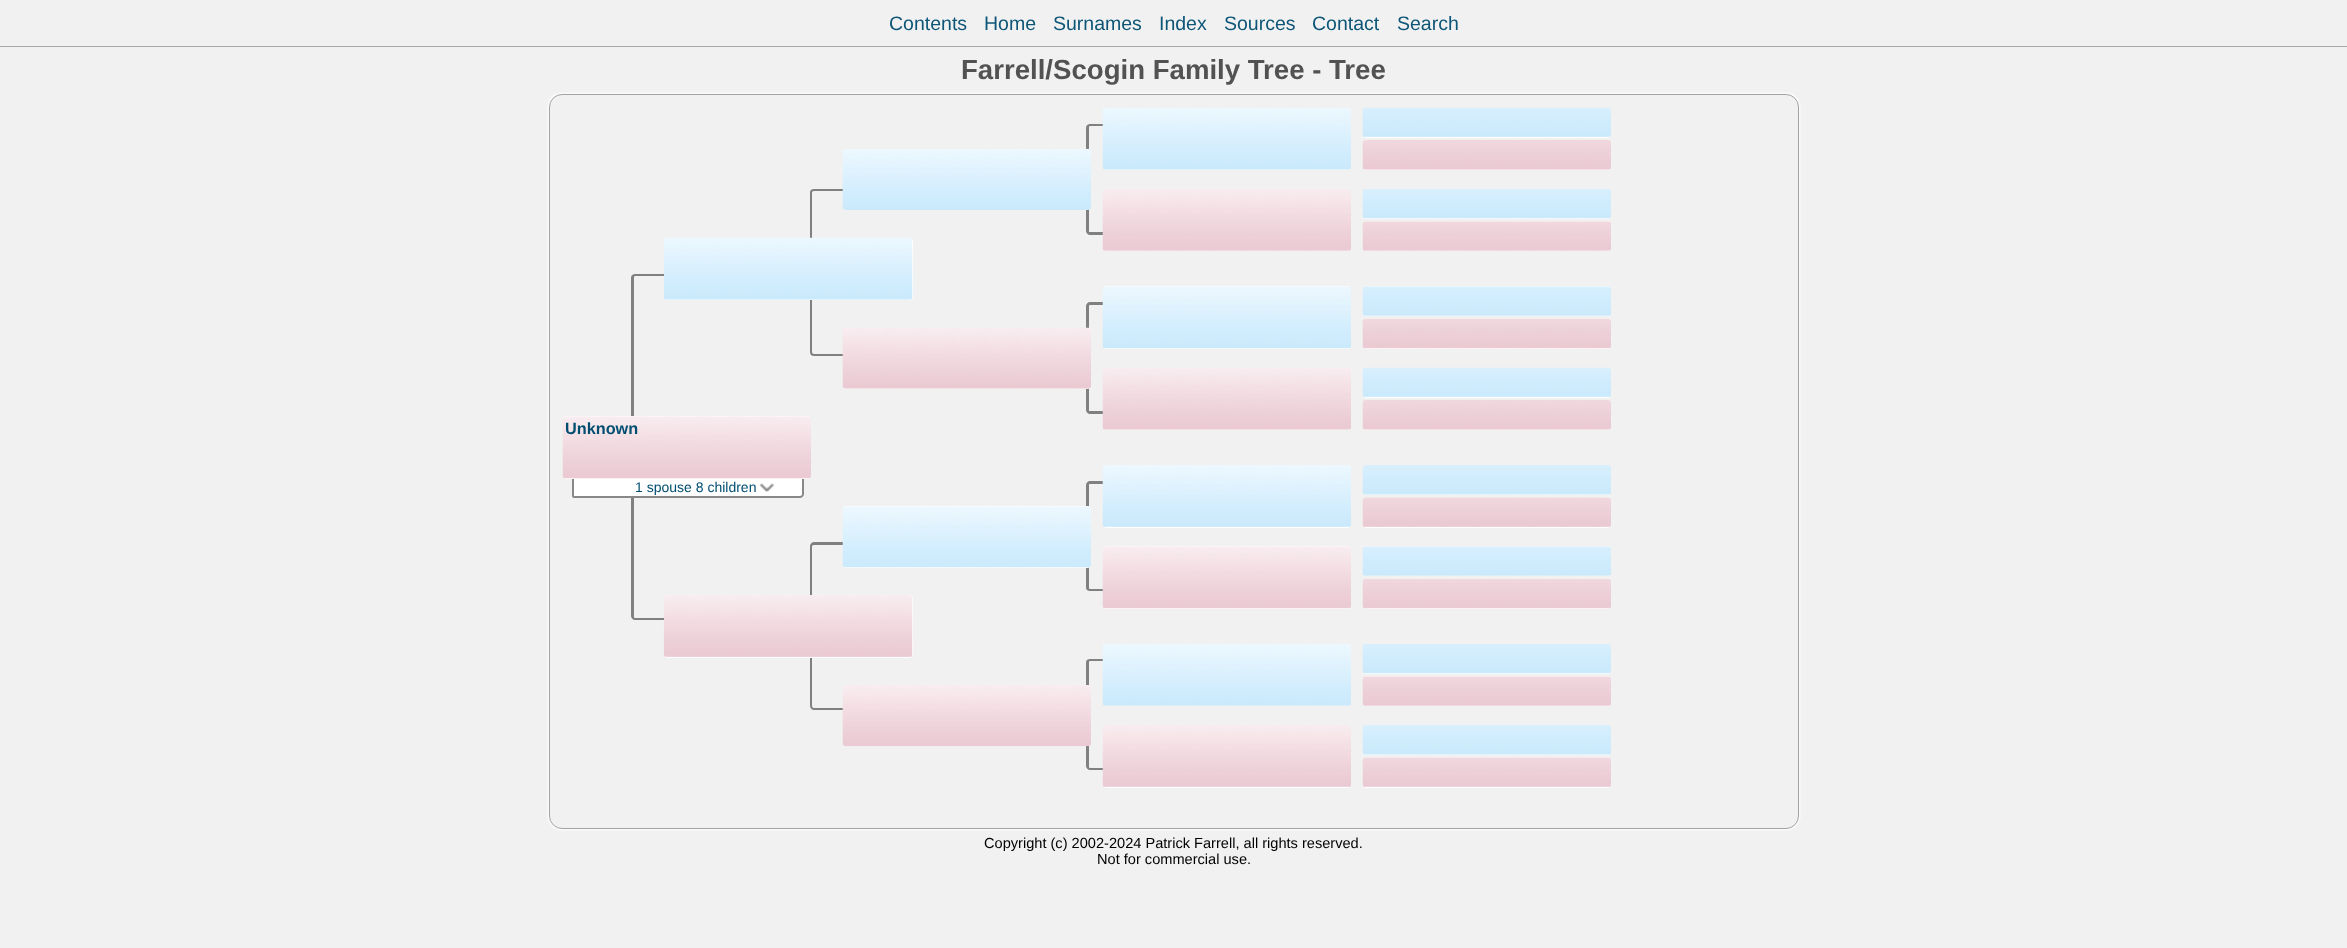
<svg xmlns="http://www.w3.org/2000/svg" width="2347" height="948">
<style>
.a{font:19.5px Liberation Sans;fill:#0d5677}
.b{font:bold 27.6px Liberation Sans;fill:#525252}
.c{font:bold 16.25px Liberation Sans;fill:#014e71}
.d{font:14px Liberation Sans;fill:#014e71}
.e{font:14.6px Liberation Sans;fill:#000}
</style>
<rect width="100%" height="100%" fill="#f1f1f1"/>
<path fill="#a7a7a7" d="M0 46h2347v1H0z"/>
<rect fill="#fff" filter="blur(1px)" x="548" y="93" width="1252" height="737" rx="14"/>
<rect fill="#f1f1f1" stroke="#a3a3a3" x="549.5" y="94.5" width="1249" height="734" rx="12.5"/>
<path fill="#808080" fill-rule="evenodd" d="M1090 124h44c2 0 4 1 4 4v103c0 2-2 4-4 4h-44c-2 0-4-2-4-4v-103c0-3 2-4 4-4zm0 2h44c2 0 4 1 4 2v103c0 1-2 1-4 1h-44c-1 0-1 0-1-1v-103c0-1 0-2 1-2z"/>
<image href="1.png" x="1102" y="108" width="249" height="62"/>
<rect fill="#fff" x="1363" y="108" width="248" height="30" rx="4"/>
<image href="2.png" x="1362" y="107" width="249" height="30"/>
<path fill="#808080" fill-rule="evenodd" d="M814 189h44c2 0 3 1 3 3v160c0 3-1 4-3 4h-44c-2 0-4-1-4-4v-160c0-2 2-3 4-3zm0 2h44c2 0 3 1 3 1v160c0 1-1 2-3 2h-44c-1 0-2-1-2-2v-160c0 0 1-1 2-1z"/>
<image href="3.png" x="842" y="148" width="249" height="62"/>
<image href="4.png" x="1362" y="140" width="249" height="30"/>
<image href="5.png" x="1102" y="189" width="249" height="62"/>
<rect fill="#fff" x="1363" y="189" width="248" height="30" rx="4"/>
<image href="6.png" x="1362" y="189" width="249" height="30"/>
<path fill="#808080" fill-rule="evenodd" d="M635 274h53c2 0 3 1 3 4v338c0 2-1 4-3 4h-53c-2 0-4-2-4-4v-338c0-3 2-4 4-4zm0 2h53c2 0 3 1 3 2v338c0 1-1 2-3 2h-53c-1 0-1-1-1-2v-338c0-1 0-2 1-2z"/>
<rect fill="#fff" x="664" y="238" width="249" height="62" rx="4"/>
<image href="7.png" x="663" y="237" width="250" height="63"/>
<path fill="#808080" fill-rule="evenodd" d="M1090 302h44c2 0 4 2 4 4v104c0 2-2 4-4 4h-44c-2 0-4-2-4-4v-104c0-2 2-4 4-4zm0 3h44c2 0 4 1 4 1v104c0 1-2 1-4 1h-44c-1 0-1 0-1-1v-104c0 0 0-1 1-1z"/>
<rect fill="#fff" x="1103" y="286" width="248" height="63" rx="4"/>
<image href="8.png" x="1102" y="286" width="249" height="63"/>
<rect fill="#fff" x="1363" y="221" width="248" height="30" rx="4"/>
<image href="9.png" x="1362" y="221" width="249" height="30"/>
<rect fill="#fff" x="1363" y="286" width="248" height="30" rx="4"/>
<image href="10.png" x="1362" y="286" width="249" height="30"/>
<rect fill="#fff" x="843" y="328" width="248" height="61" rx="4"/>
<image href="11.png" x="842" y="327" width="249" height="62"/>
<rect fill="#fff" x="1363" y="319" width="248" height="30" rx="4"/>
<image href="12.png" x="1362" y="319" width="249" height="30"/>
<image href="13.png" x="1102" y="368" width="249" height="62"/>
<rect fill="#fff" x="1363" y="368" width="248" height="30" rx="4"/>
<image href="2.png" x="1362" y="367" width="249" height="30"/>
<path fill="#fff" d="M573 476h231v18c0 2-2 4-4 4h-226c-.5 0-1-.5-1-1z"/>
<path fill="#888" fill-rule="evenodd" d="M572 476h232v18c0 2-2 4-4 4h-226c-1 0-2-1-2-2zm2 0h228v18c0 1-1 2-2 2h-226z"/>
<rect fill="#fff" x="563" y="416" width="248" height="63" rx="4"/>
<image href="14.png" x="562" y="416" width="249" height="63"/>
<image href="4.png" x="1362" y="400" width="249" height="30"/>
<image href="15.png" x="759" y="483" width="15" height="9"/>
<path fill="#808080" fill-rule="evenodd" d="M1090 481h44c2 0 4 2 4 4v103c0 2-2 3-4 3h-44c-2 0-4-1-4-3v-103c0-2 2-4 4-4zm0 3h44c2 0 4 0 4 1v103c0 0-2 1-4 1h-44c-1 0-1-1-1-1v-103c0-1 0-1 1-1z"/>
<rect fill="#fff" x="1103" y="465" width="248" height="63" rx="4"/>
<image href="16.png" x="1102" y="465" width="249" height="62"/>
<image href="17.png" x="1362" y="465" width="249" height="30"/>
<path fill="#808080" fill-rule="evenodd" d="M814 542h44c2 0 3 2 3 4v160c0 2-1 4-3 4h-44c-2 0-4-2-4-4v-160c0-2 2-4 4-4zm0 3h44c2 0 3 1 3 1v160c0 1-1 2-3 2h-44c-1 0-2-1-2-2v-160c0 0 1-1 2-1z"/>
<rect fill="#fff" x="843" y="506" width="248" height="62" rx="4"/>
<image href="18.png" x="842" y="506" width="249" height="62"/>
<rect fill="#fff" x="1363" y="498" width="248" height="30" rx="4"/>
<image href="19.png" x="1362" y="497" width="249" height="30"/>
<rect fill="#fff" x="1103" y="546" width="248" height="63" rx="4"/>
<image href="20.png" x="1102" y="546" width="249" height="63"/>
<rect fill="#fff" x="1363" y="546" width="248" height="30" rx="4"/>
<image href="10.png" x="1362" y="546" width="249" height="30"/>
<rect fill="#fff" x="664" y="595" width="249" height="63" rx="4"/>
<image href="21.png" x="663" y="595" width="250" height="62"/>
<rect fill="#fff" x="1363" y="579" width="248" height="30" rx="4"/>
<image href="12.png" x="1362" y="579" width="249" height="30"/>
<path fill="#808080" fill-rule="evenodd" d="M1090 659h44c2 0 4 1 4 3v104c0 2-2 4-4 4h-44c-2 0-4-2-4-4v-104c0-2 2-3 4-3zm0 2h44c2 0 4 1 4 1v104c0 1-2 2-4 2h-44c-1 0-1-1-1-2v-104c0 0 0-1 1-1z"/>
<image href="22.png" x="1102" y="644" width="249" height="62"/>
<rect fill="#fff" x="1363" y="644" width="248" height="30" rx="4"/>
<image href="6.png" x="1362" y="644" width="249" height="30"/>
<image href="23.png" x="842" y="685" width="249" height="62"/>
<rect fill="#fff" x="1363" y="676" width="248" height="30" rx="4"/>
<image href="9.png" x="1362" y="676" width="249" height="30"/>
<rect fill="#fff" x="1103" y="725" width="248" height="63" rx="4"/>
<image href="24.png" x="1102" y="725" width="249" height="62"/>
<image href="17.png" x="1362" y="725" width="249" height="30"/>
<rect fill="#fff" x="1363" y="758" width="248" height="30" rx="4"/>
<image href="19.png" x="1362" y="757" width="249" height="30"/>
<text class="a" x="889" y="30">Contents</text>
<text class="a" x="984" y="30">Home</text>
<text class="a" x="1053" y="30">Surnames</text>
<text class="a" x="1159" y="30">Index</text>
<text class="a" x="1224" y="30">Sources</text>
<text class="a" x="1312" y="30">Contact</text>
<text class="a" x="1397" y="30">Search</text>
<text class="b" x="961" y="79">Farrell/Scogin Family Tree - Tree</text>
<text class="c" x="565" y="434">Unknown</text>
<text class="d" x="635" y="492">1 spouse 8 children</text>
<text class="e" x="984" y="848">Copyright (c) 2002-2024 Patrick Farrell, all rights reserved.</text>
<text class="e" x="1097" y="864">Not for commercial use.</text>
</svg>
